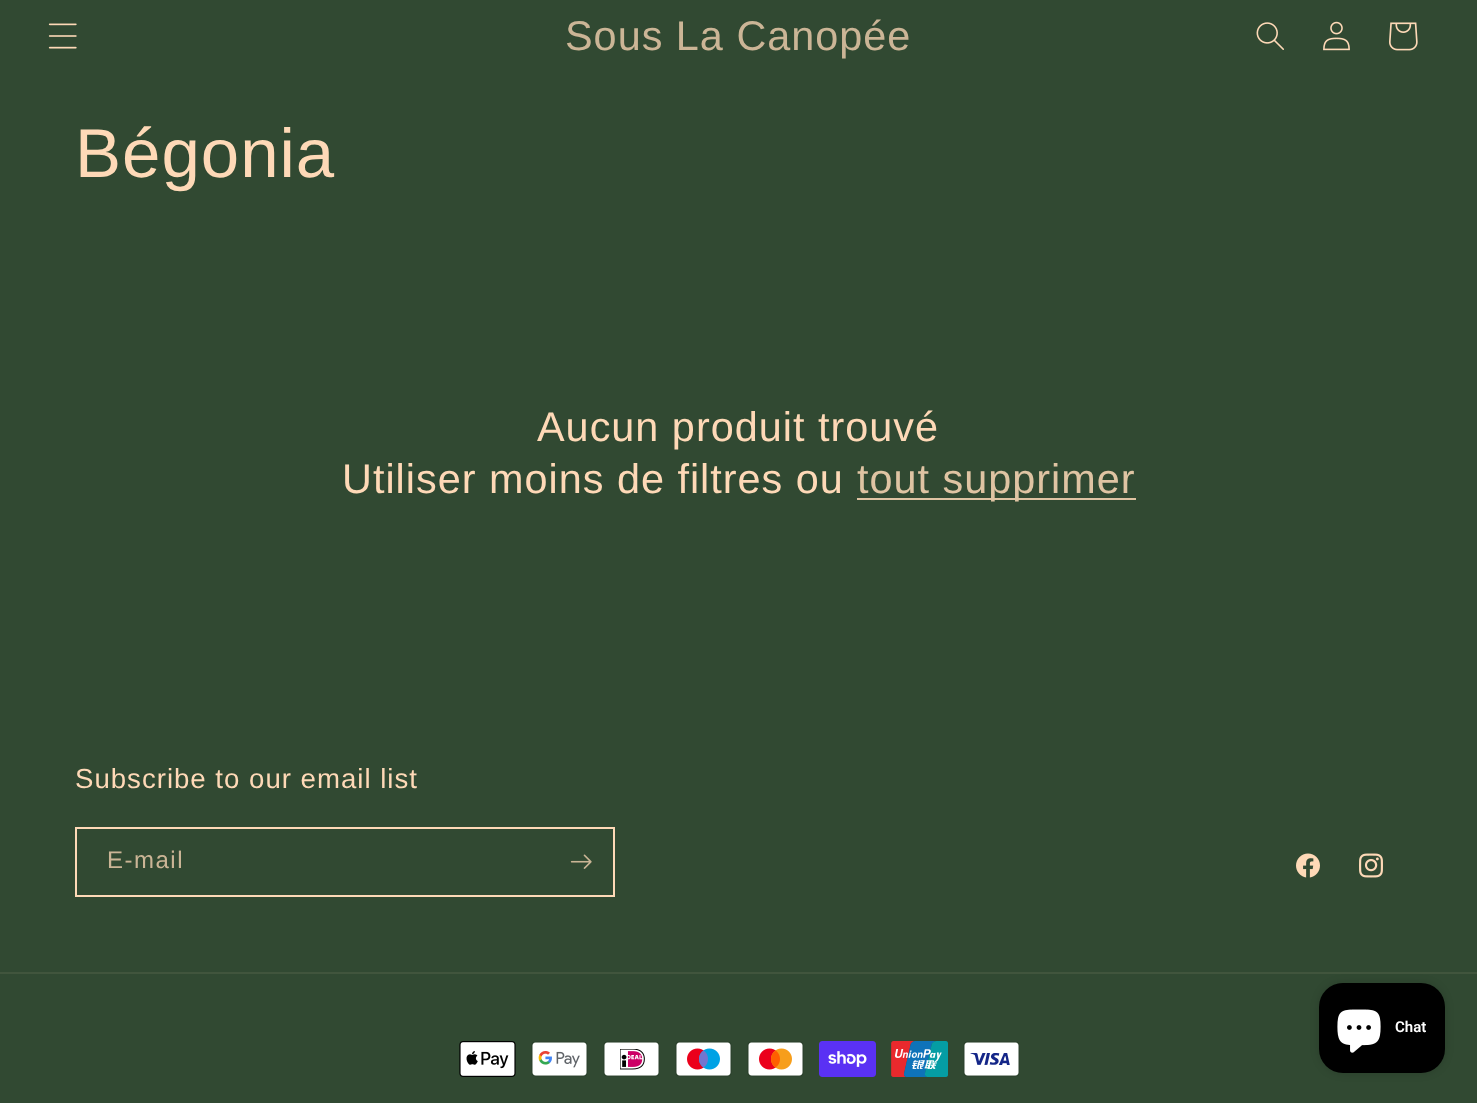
<svg xmlns="http://www.w3.org/2000/svg" width="1477" height="1103">
<style>
.a{font:41.4px Liberation Sans;letter-spacing:1px;fill:#cbb596}
.b{font:69px Liberation Sans;letter-spacing:1px;fill:#fed9b7}
.c{font:41.4px Liberation Sans;letter-spacing:1px;fill:#fed9b7}
.d{font:41.4px Liberation Sans;letter-spacing:1px;fill:#dfc4a3}
.e{font:27.6px Liberation Sans;letter-spacing:1px;fill:#fed9b7}
.f{font:24px Liberation Sans;letter-spacing:1.5px;fill:#cbb596}
.g{font:600 15px Roboto;fill:#fff}
</style>
<rect width="100%" height="100%" fill="#314932"/>
<image href="1.png" x="48" y="23" width="29" height="26"/>
<image href="2.png" x="1256" y="22" width="28" height="28"/>
<image href="3.png" x="1323" y="21" width="27" height="30"/>
<image href="4.png" x="1389" y="22" width="29" height="29"/>
<path fill="#dfc3a3" d="M857 498h279v2H857z"/>
<path fill="none" stroke="#fed9b7" stroke-width="2" d="M76 828h538v68H76z"/>
<image href="5.png" x="570" y="854" width="22" height="15"/>
<image href="6.png" x="1296" y="853" width="24" height="25"/>
<image href="7.png" x="1359" y="853" width="24" height="25"/>
<path fill="#41553d" d="M0 972h1477v2H0z"/>
<image href="8.png" x="459" y="1041" width="57" height="36"/>
<image href="9.png" x="531" y="1041" width="57" height="36"/>
<image href="10.png" x="603" y="1041" width="57" height="36"/>
<image href="11.png" x="675" y="1041" width="57" height="36"/>
<image href="12.png" x="747" y="1041" width="57" height="36"/>
<image href="13.png" x="819" y="1041" width="57" height="36"/>
<image href="14.png" x="891" y="1041" width="57" height="36"/>
<image href="15.png" x="963" y="1041" width="57" height="36"/>
<rect fill="#00000026" filter="blur(4px)" x="1319" y="983" width="126" height="90" rx="24"/>
<rect fill="#000" x="1319" y="983" width="126" height="90" rx="24"/>
<image href="16.png" x="1337" y="1009" width="44" height="44"/>
<text class="a" x="565" y="50">Sous La Canopée</text>
<text class="b" x="75" y="177">Bégonia</text>
<text class="c" x="537" y="441">Aucun produit trouvé</text>
<text class="c" x="342" y="493">Utiliser moins de filtres ou</text>
<text class="d" x="857" y="493">tout supprimer</text>
<text class="e" x="75" y="788">Subscribe to our email list</text>
<text class="f" x="107" y="868">E-mail</text>
<text class="g" x="1395" y="1032">Chat</text>
</svg>
